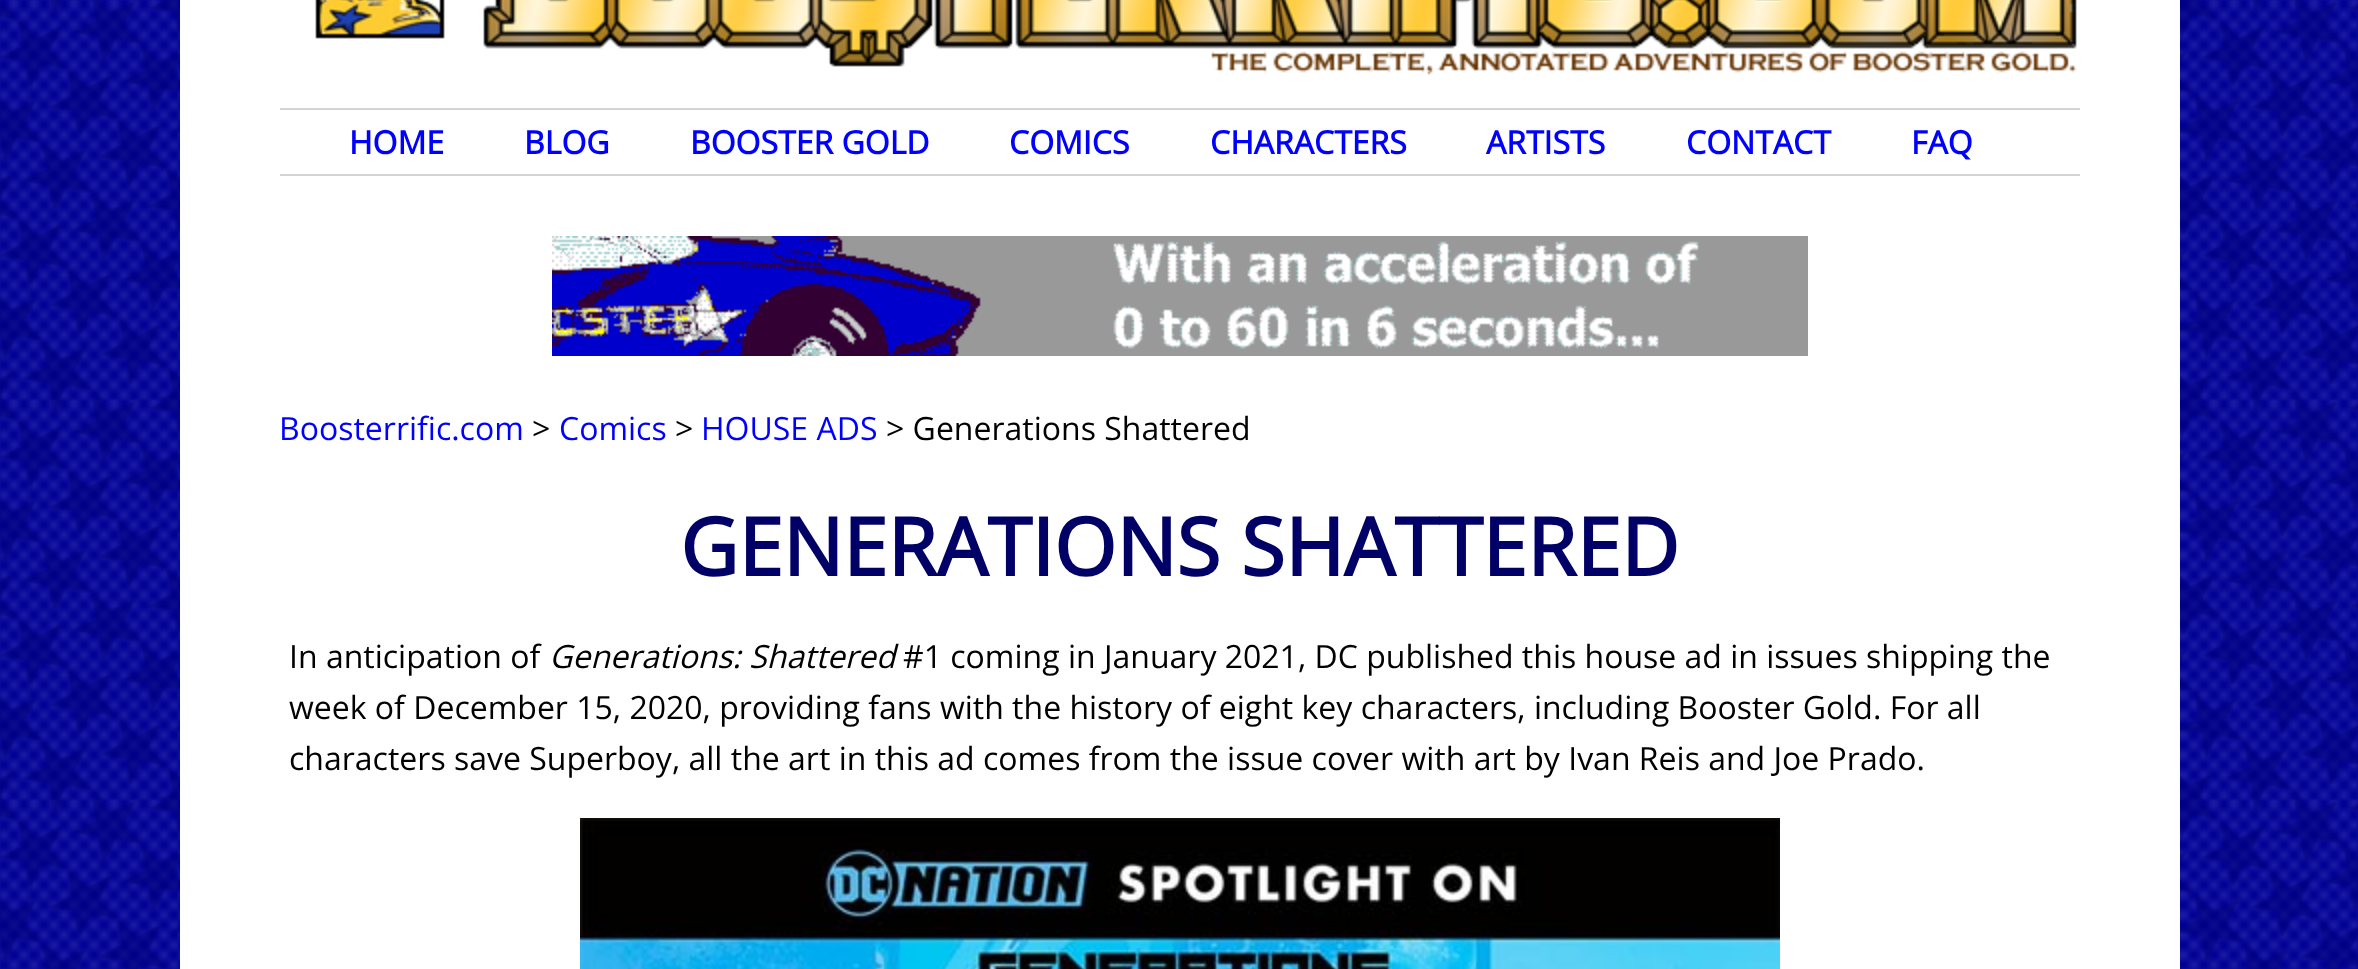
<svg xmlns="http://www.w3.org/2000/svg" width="2358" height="969">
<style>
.a{font:bold 32px Open Sans;fill:#00f}
.b{font:32px Open Sans;fill:#00f}
.c{font:32px Open Sans;fill:#000}
.d{font:bold 80px Open Sans;fill:#006}
.e{font:italic 32px Open Sans;fill:#000}
</style>
<rect width="100%" height="100%" fill="#fff"/>
<image href="1.png" x="0" y="0" width="2358" height="969"/>
<path fill="#fff" d="M180 0h2000v969H180z"/>
<image href="2.png" x="315" y="0" width="130" height="39"/>
<image href="3.png" x="483" y="0" width="1594" height="75"/>
<path fill="#d3d3d3" d="M280 108h1800v2H280z"/>
<path fill="#d3d3d3" d="M280 174h1800v2H280z"/>
<image href="4.png" x="552" y="236" width="1256" height="120"/>
<image href="5.png" x="580" y="818" width="1200" height="151"/>
<text class="a" x="349" y="154">HOME</text>
<text class="a" x="524" y="154">BLOG</text>
<text class="a" x="690" y="154">BOOSTER GOLD</text>
<text class="a" x="1009" y="154">COMICS</text>
<text class="a" x="1210" y="154">CHARACTERS</text>
<text class="a" x="1486" y="154">ARTISTS</text>
<text class="a" x="1686" y="154">CONTACT</text>
<text class="a" x="1911" y="154">FAQ</text>
<text class="b" x="279" y="440">Boosterrific.com</text>
<text class="c" x="532" y="440">&gt;</text>
<text class="b" x="559" y="440">Comics</text>
<text class="c" x="675" y="440">&gt;</text>
<text class="b" x="701" y="440">HOUSE ADS</text>
<text class="c" x="886" y="440">&gt; Generations Shattered</text>
<text class="d" x="680" y="576">GENERATIONS SHATTERED</text>
<text class="c" x="289" y="668">In anticipation of</text>
<text class="e" x="549" y="668">Generations: Shattered</text>
<text class="c" x="903" y="668">#1 coming in January 2021, DC published this house ad in issues shipping the</text>
<text class="c" x="289" y="719">week of December 15, 2020, providing fans with the history of eight key characters, including Booster Gold. For all</text>
<text class="c" x="289" y="770">characters save Superboy, all the art in this ad comes from the issue cover with art by Ivan Reis and Joe Prado.</text>
</svg>
